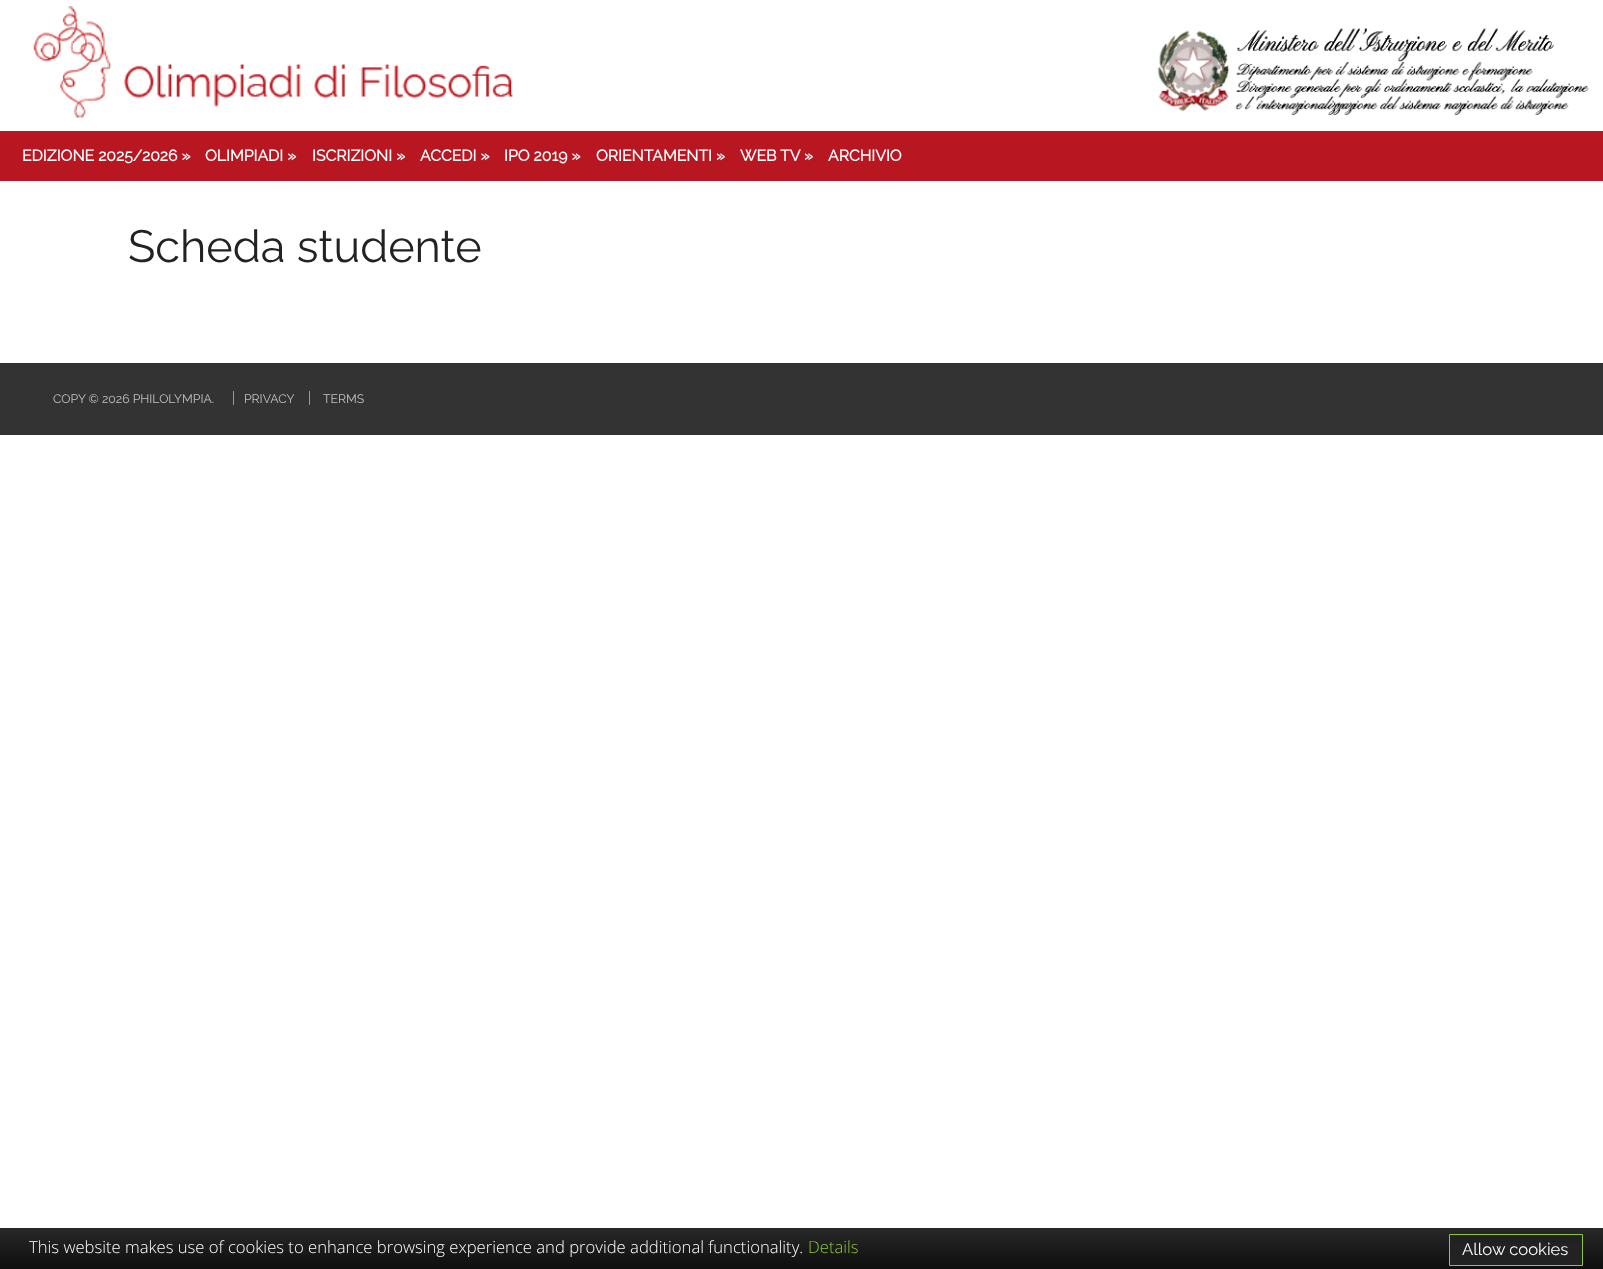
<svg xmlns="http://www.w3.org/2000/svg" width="1603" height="1269">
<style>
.a{font:bold 15.75px Raleway;fill:#fff}
.b{font:100 45px Raleway;fill:#222}
.c{font:100 12.25px Raleway;fill:#c2c2c2}
.d{font:300 16.65px Open Sans;fill:#fff}
.e{font:300 16.65px Open Sans;fill:#8dc63f}
.f{font:100 16.65px Raleway;fill:#fff}
</style>
<defs>
<linearGradient id="g1" gradientUnits="userSpaceOnUse" x1="806" y1="1227" x2="806" y2="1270"><stop offset="0" stop-color="#292929"/><stop offset="1" stop-color="#0d0d0d"/></linearGradient>
</defs>
<rect width="100%" height="100%" fill="#fff"/>
<image href="1.png" x="33" y="6" width="480" height="112"/>
<image href="2.png" x="1157" y="28" width="432" height="88"/>
<path fill="#b81721" d="M0 131h1603v50H0z"/>
<path fill="#333" d="M0 363h1603v72H0z"/>
<path fill="#999" d="M233 391h1v14H233z"/>
<path fill="#999" d="M309 391h1v14H309z"/>
<path fill="url(#g1)" d="M0 1228h1603v41H0z"/>
<path fill="#222" d="M1450 1242h132v23H1450z"/>
<path fill="none" stroke="#8dc63f" d="M1449.5 1234.5h133v31H1449.5z"/>
<text class="a" x="22" y="161">EDIZIONE 2025/2026 »</text>
<text class="a" x="205" y="161">OLIMPIADI »</text>
<text class="a" x="312" y="161">ISCRIZIONI »</text>
<text class="a" x="420" y="161">ACCEDI »</text>
<text class="a" x="504" y="161">IPO 2019 »</text>
<text class="a" x="596" y="161">ORIENTAMENTI »</text>
<text class="a" x="740" y="161">WEB TV »</text>
<text class="a" x="828" y="161">ARCHIVIO</text>
<text class="b" x="128" y="262">Scheda studente</text>
<text class="c" x="53" y="403">COPY © 2026 PHILOLYMPIA.</text>
<text class="c" x="244" y="403">PRIVACY</text>
<text class="c" x="323" y="403">TERMS</text>
<text class="d" x="29" y="1253">This website makes use of cookies to enhance browsing experience and provide additional functionality.</text>
<text class="e" x="808" y="1253">Details</text>
<text class="f" x="1462" y="1255">Allow cookies</text>
</svg>
